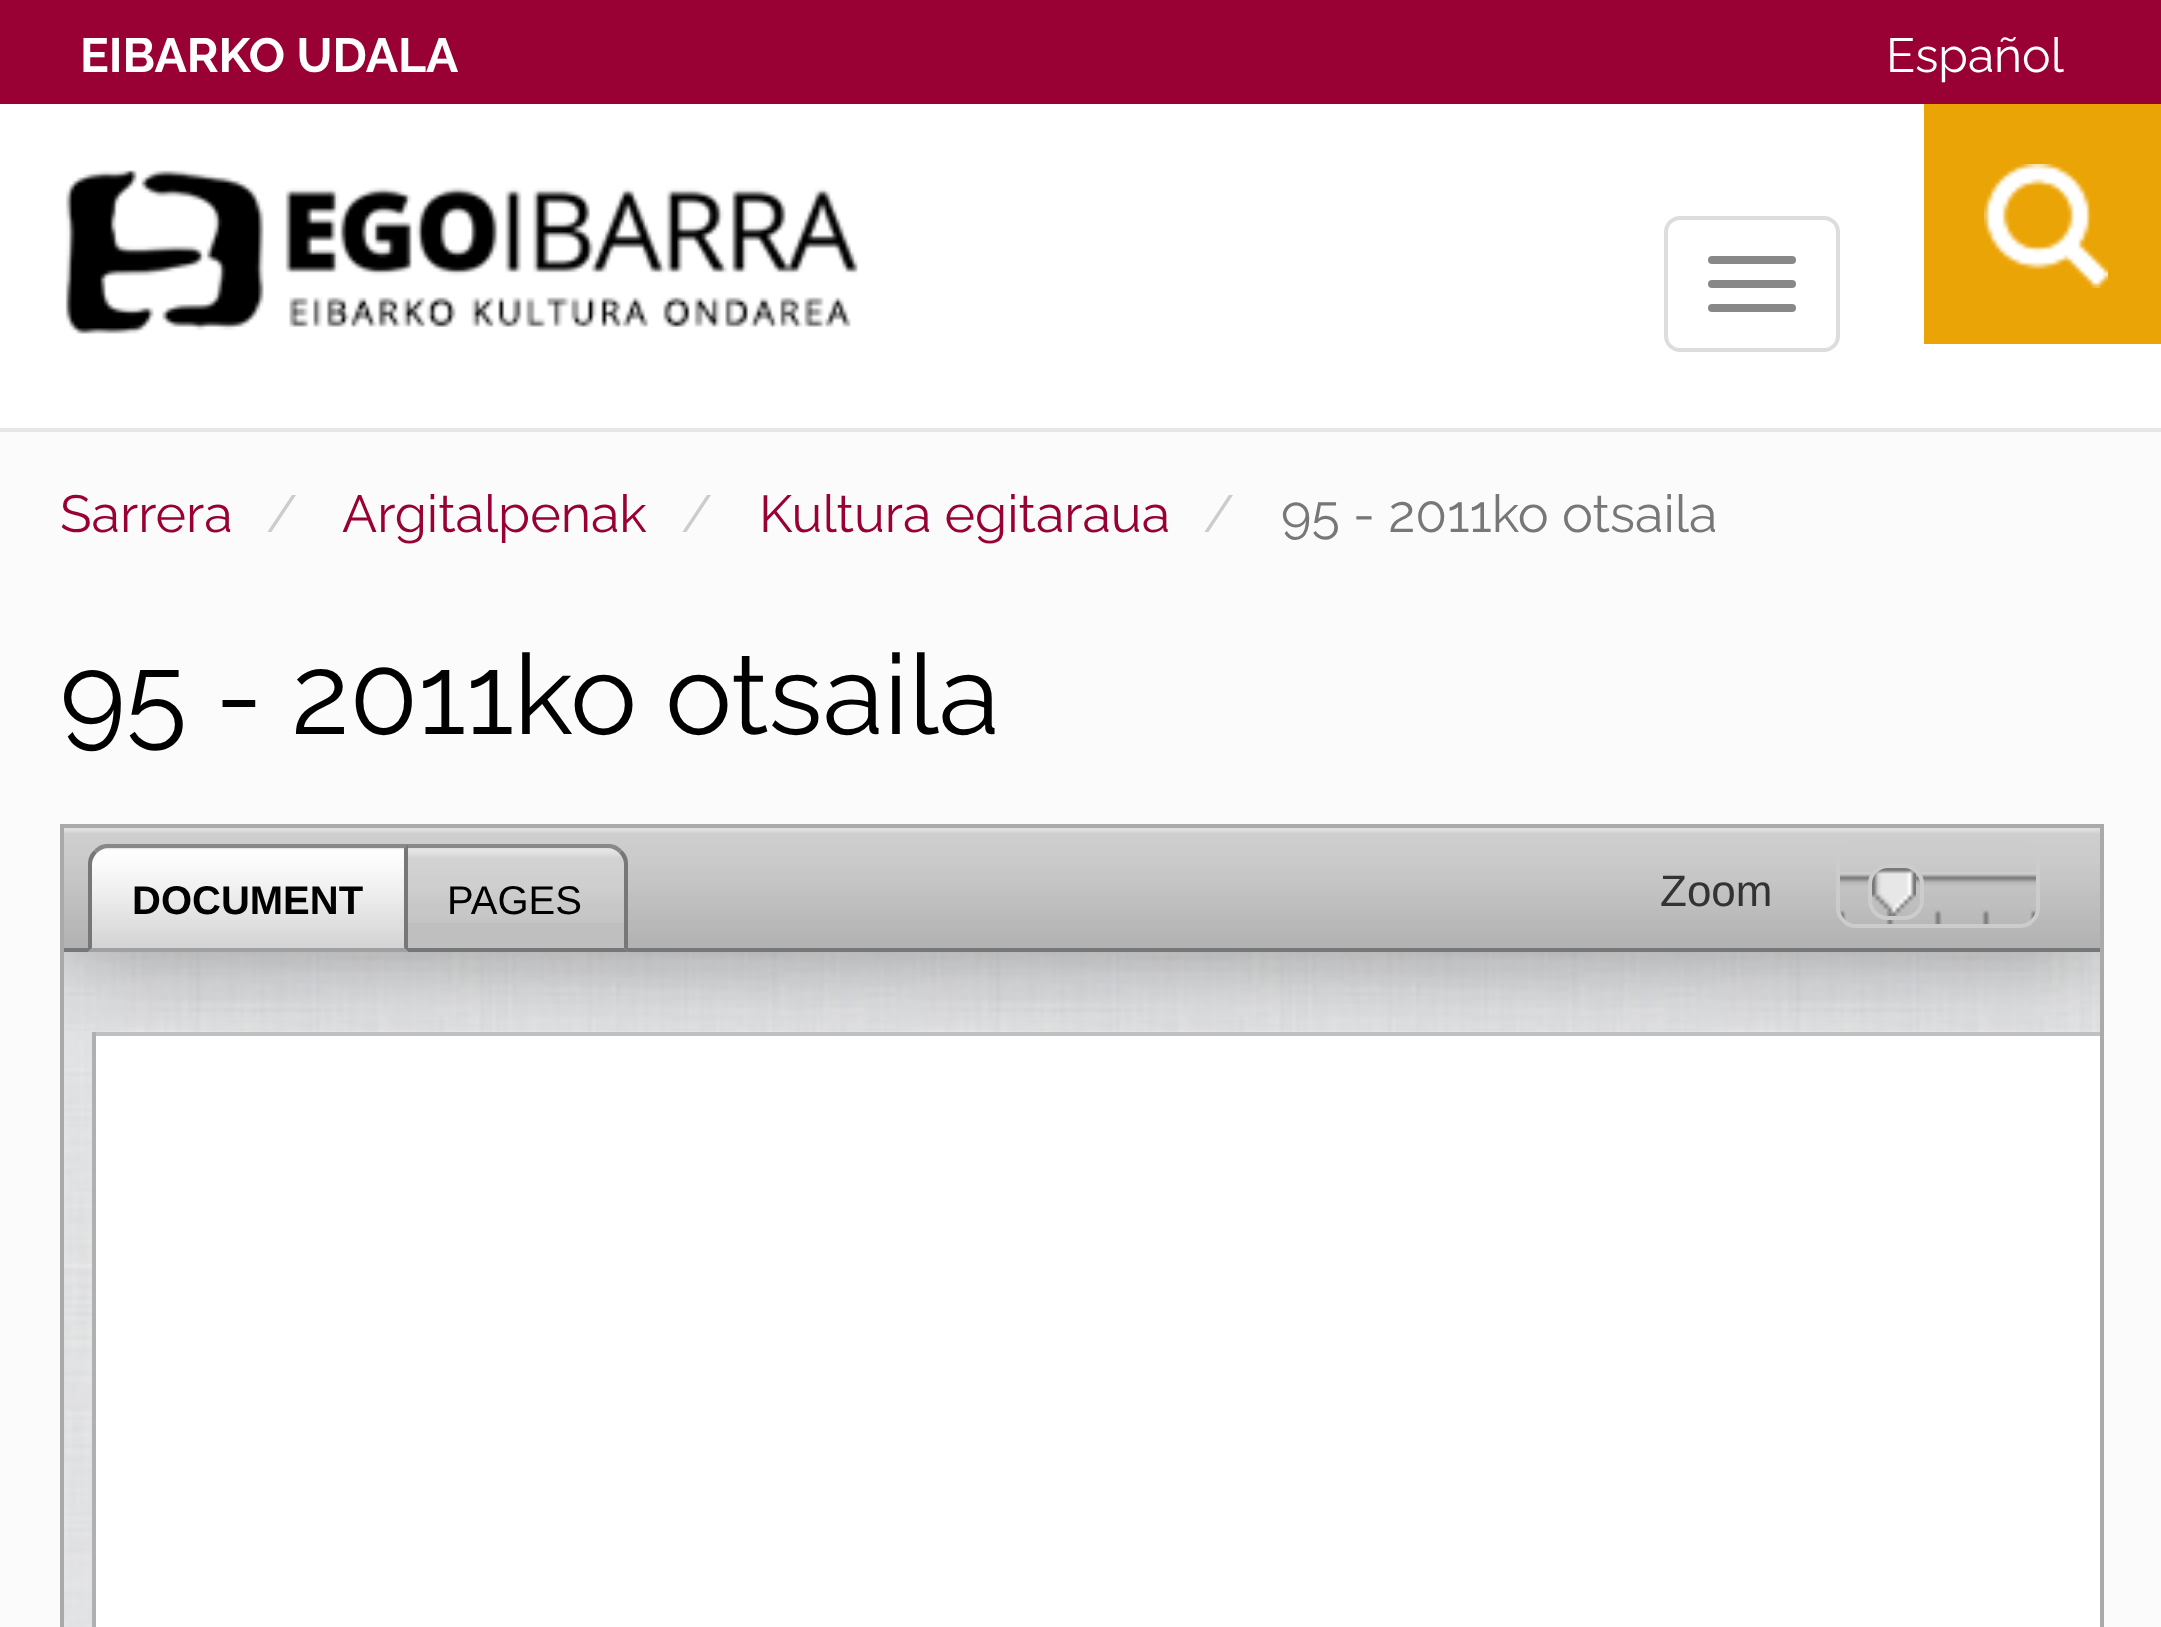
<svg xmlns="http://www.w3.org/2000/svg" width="2161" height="1627">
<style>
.a{font:bold 48px Raleway;fill:#fff}
.b{font:48px Raleway;fill:#fff}
.c{font:52px Raleway;fill:#903}
.d{font:52px Raleway;fill:#ccc}
.e{font:52px Raleway;fill:#777}
.f{font:112px Raleway;fill:#010101}
.g{font:bold 40px Liberation Sans;fill:#010101}
.h{font:40px Liberation Sans;fill:#010101}
.i{font:44px Liberation Sans;fill:#333}
</style>
<defs>
<clipPath id="clip1"><path d="M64 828h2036v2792H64z"/></clipPath>
<clipPath id="clip2"><path d="M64 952h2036v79H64z"/></clipPath>
</defs>
<rect width="100%" height="100%" fill="#fbfbfb"/>
<path fill="#fff" d="M0 104h2161v324H0z"/>
<path fill="#e6e6e6" d="M0 428h2161v4H0z"/>
<path fill="#903" d="M0 0h2161v104H0z"/>
<image href="1.png" x="65" y="170" width="793" height="164"/>
<rect fill="none" stroke="#ddd" stroke-width="4" x="1666" y="218" width="172" height="132" rx="14"/>
<rect fill="#888" x="1708" y="256" width="88" height="8" rx="4"/>
<rect fill="#888" x="1708" y="280" width="88" height="8" rx="4"/>
<rect fill="#888" x="1708" y="304" width="88" height="8" rx="4"/>
<path fill="#eba406" d="M1924 104h237v240H1924z"/>
<image href="2.png" x="1984" y="164" width="124" height="124"/>
<path fill="none" stroke="#aaa" stroke-width="4" d="M62 826h2040v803H62z"/>
<image href="8.png" x="64" y="952" width="2036" height="80"/>
<image href="9.png" x="64" y="1032" width="28" height="595"/>
<path fill="#fff" d="M96 1036h2004v591H96z"/>
<path fill="#c0c0c0" d="M92 1032h2008v4H92z"/>
<path fill="#b0b0b0" d="M92 1032h4v595H92z"/>
<g clip-path="url(#clip1)">
<g clip-path="url(#clip2)">
<path fill="#00000059" filter="blur(50px)" d="M64 828h2036v124H64z"/>
</g>
</g>
<path fill="#777" d="M64 948h2036v4H64z"/>
<image href="3.png" x="64" y="828" width="2036" height="120"/>
<path fill="#bfbfbf" d="M108 844h300v108h-320v-88c0-11 9-20 20-20z"/>
<image href="4.png" x="88" y="846" width="320" height="106"/>
<path fill="#888" d="M108 844c-6 0-10 2-14 6l3 3c3-3 7-5 11-5h296l4-4z"/>
<path fill="#777" d="M408 844l-4 4v100l4 4z"/>
<path fill="#a0a0a0" d="M408 952l-4-4h-312l-4 4z"/>
<path fill="#777" d="M88 952l4-4v-84c0-4 2-8 5-11l-3-3c-4 4-6 8-6 14z"/>
<path fill="#bfbfbf" d="M408 844h200c11 0 20 9 20 20v88h-220z"/>
<image href="5.png" x="408" y="844" width="220" height="79"/>
<path fill="#888" d="M408 844v4h200c4 0 8 2 11 5l3-3c-4-4-8-6-14-6z"/>
<path fill="#777" d="M624 948v-84c0-4-2-8-5-11l3-3c4 4 6 8 6 14v88z"/>
<path fill="#777" d="M628 952l-4-4h-216v4z"/>
<image href="6.png" x="1838" y="872" width="200" height="52"/>
<rect fill="none" stroke="#ccc" stroke-width="4" x="1838" y="842" width="200" height="84" rx="18"/>
<image href="7.png" x="1872" y="868" width="44" height="48"/>
<rect fill="none" stroke="#ccc" stroke-width="4" x="1870" y="866" width="52" height="52" rx="18"/>
<text class="a" x="80" y="72">EIBARKO UDALA</text>
<text class="b" x="1886" y="72">Español</text>
<text class="c" x="60" y="532">Sarrera</text>
<text class="d" x="266" y="532">/</text>
<text class="c" x="342" y="532">Argitalpenak</text>
<text class="d" x="681" y="532">/</text>
<text class="c" x="759" y="532">Kultura egitaraua</text>
<text class="d" x="1203" y="532">/</text>
<text class="e" x="1281" y="532">95 - 2011ko otsaila</text>
<text class="f" x="60" y="734">95 - 2011ko otsaila</text>
<text class="g" x="132" y="914">DOCUMENT</text>
<text class="h" x="447" y="914">PAGES</text>
<text class="i" x="1660" y="906">Zoom</text>
</svg>
